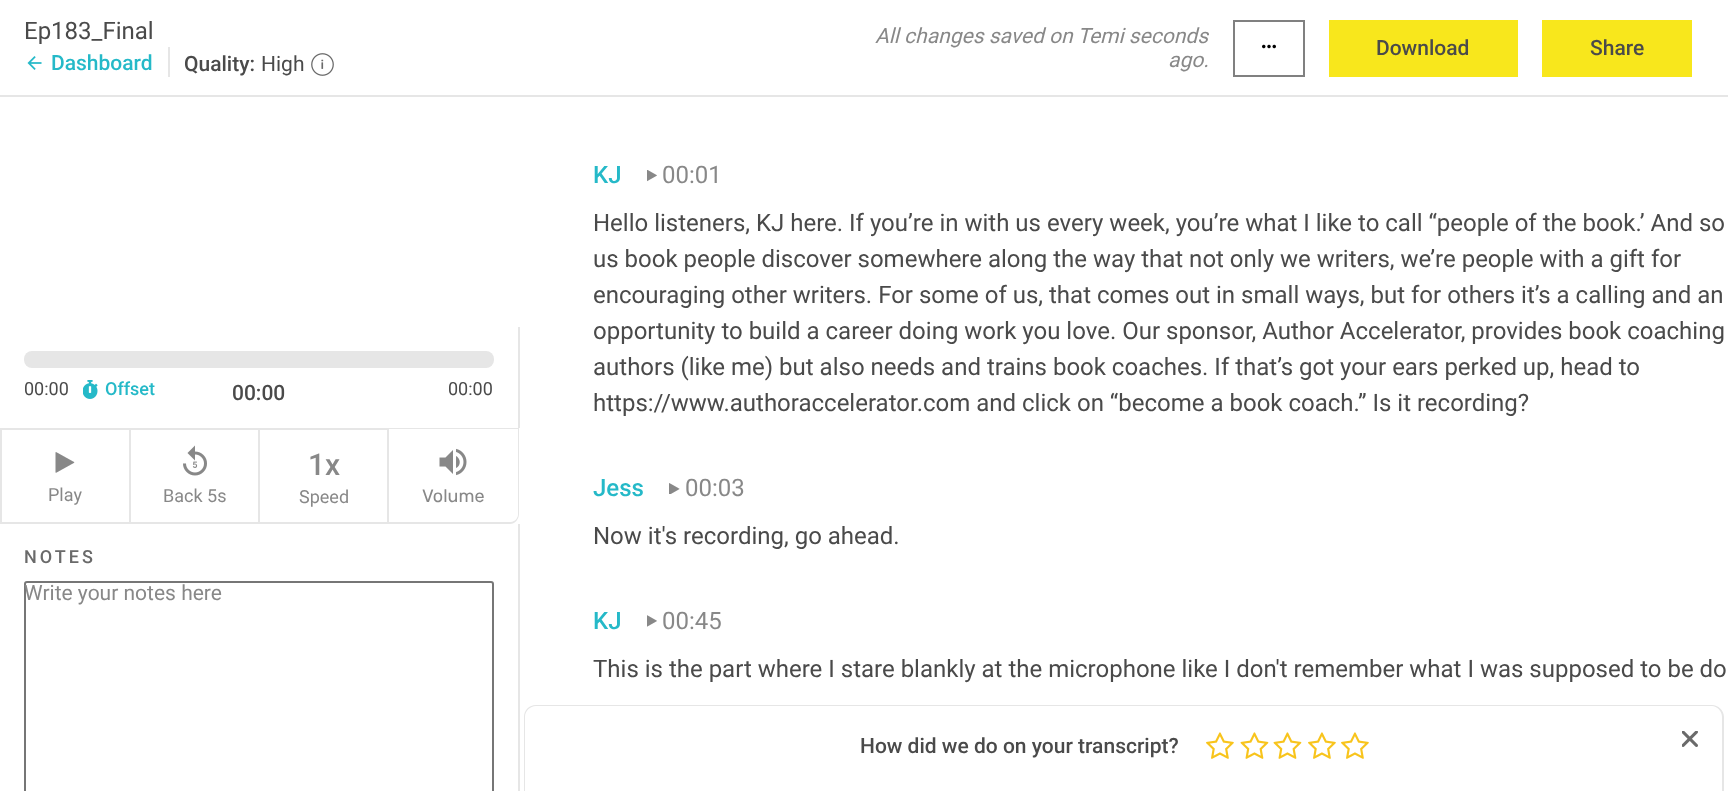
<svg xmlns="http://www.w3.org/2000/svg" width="1728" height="791">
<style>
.a{font:24px Roboto;fill:#4a4a4a}
.b{font:500 21px Roboto;fill:#25b9c8}
.c{font:500 21px Roboto;fill:#4a4a4a}
.d{font:21px Roboto;fill:#4a4a4a}
.e{font:italic 21px Roboto;fill:#888}
.f{font:18px Roboto;fill:#4a4a4a}
.g{font:500 18px Roboto;fill:#25b9c8}
.h{font:18px Roboto;fill:#888}
.i{font:500 30px Roboto;fill:#888}
.j{font:18px Rubik;fill:#888}
.k{font:500 18px Roboto;letter-spacing:3px;fill:#6a6a6a}
.l{font:21px Roboto;fill:#888}
.m{font:500 24px Roboto;fill:#25b9c8}
.n{font:24px Roboto;fill:#888}
</style>
<rect width="100%" height="100%" fill="#fff"/>
<path fill="#e6e6e6" d="M0 95h1728v2H0z"/>
<image href="1.png" x="27" y="56" width="15" height="14"/>
<path fill="#e6e6e6" d="M168 47h2v30H168z"/>
<image href="2.png" x="311" y="53" width="23" height="23"/>
<path fill="none" stroke="#808080" stroke-width="2" d="M1234 21h70v55H1234z"/>
<image href="3.png" x="1262" y="44" width="14" height="5"/>
<path fill="#f8e71c" d="M1329 20h189v57H1329z"/>
<path fill="#f8e71c" d="M1542 20h150v57H1542z"/>
<path fill="#e6e6e6" d="M518 327h2v101H518z"/>
<rect fill="#e6e6e6" x="24" y="351" width="470" height="17" rx="8"/>
<image href="4.png" x="83" y="380" width="15" height="19"/>
<path fill="none" stroke="#e6e6e6" stroke-width="2" d="M1 429h129v94H1z"/>
<image href="5.png" x="55" y="452" width="20" height="21"/>
<path fill="#e6e6e6" d="M131 428h258v2H131z"/>
<path fill="#e6e6e6" d="M258 428h2v96H258z"/>
<path fill="#e6e6e6" d="M131 522h129v2H131z"/>
<image href="6.png" x="183" y="445" width="24" height="31"/>
<path fill="#e6e6e6" d="M387 428h2v96H387z"/>
<path fill="#e6e6e6" d="M260 522h129v2H260z"/>
<path fill="#e6e6e6" fill-rule="evenodd" d="M388 428h131v86c0 5-4 10-9 10h-122zm0 1h130v85c0 5-4 8-8 8h-122z"/>
<path fill="#fff" d="M389 429h129v84c0 5-4 9-9 9h-120z"/>
<image href="7.png" x="439" y="448" width="28" height="28"/>
<path fill="#e6e6e6" d="M518 524h2v267H518z"/>
<rect fill="none" stroke="#767676" stroke-width="2" x="25" y="582" width="468" height="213" rx="2"/>
<image href="8.png" x="647" y="170" width="10" height="12"/>
<image href="9.png" x="669" y="483" width="11" height="11"/>
<image href="10.png" x="647" y="615" width="10" height="12"/>
<path fill="#e6e6e6" fill-rule="evenodd" d="M536 705h1176c6 0 12 5 12 12v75h-1200v-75c0-7 5-12 12-12zm0 1h1176c5 0 10 5 10 11v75h-1197v-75c0-6 5-11 11-11z"/>
<image href="11.png" x="1206" y="732" width="28" height="27"/>
<image href="12.png" x="1240" y="732" width="29" height="27"/>
<image href="12.png" x="1273" y="732" width="29" height="27"/>
<image href="11.png" x="1308" y="732" width="28" height="27"/>
<image href="11.png" x="1341" y="732" width="28" height="27"/>
<image href="13.png" x="1682" y="731" width="16" height="16"/>
<text class="a" x="24" y="39">Ep183_Final</text>
<text class="b" x="51" y="70">Dashboard</text>
<text class="c" x="184" y="71">Quality:</text>
<text class="d" x="261" y="71">High</text>
<text class="e" x="875" y="43">All changes saved on Temi seconds</text>
<text class="e" x="1168" y="67">ago.</text>
<text class="c" x="1376" y="55">Download</text>
<text class="c" x="1590" y="55">Share</text>
<text class="f" x="24" y="395">00:00</text>
<text class="g" x="105" y="395">Offset</text>
<text class="c" x="232" y="400">00:00</text>
<text class="f" x="448" y="395">00:00</text>
<text class="h" x="48" y="501">Play</text>
<text class="h" x="163" y="502">Back 5s</text>
<text class="i" x="308" y="475">1x</text>
<text class="h" x="299" y="503">Speed</text>
<text class="j" x="422" y="502">Volume</text>
<text class="k" x="24" y="563">NOTES</text>
<text class="l" x="24" y="600">Write your notes here</text>
<text class="m" x="593" y="183">KJ</text>
<text class="n" x="662" y="183">00:01</text>
<text class="a" x="593" y="231">Hello listeners, KJ here. If you’re in with us every week, you’re what I like to call “people of the book.’ And so</text>
<text class="a" x="593" y="267">us book people discover somewhere along the way that not only we writers, we’re people with a gift for</text>
<text class="a" x="593" y="303">encouraging other writers. For some of us, that comes out in small ways, but for others it’s a calling and an</text>
<text class="a" x="593" y="339">opportunity to build a career doing work you love. Our sponsor, Author Accelerator, provides book coaching</text>
<text class="a" x="593" y="375">authors (like me) but also needs and trains book coaches. If that’s got your ears perked up, head to</text>
<text class="a" x="593" y="411">https://www.authoraccelerator.com and click on “become a book coach.” Is it recording?</text>
<text class="m" x="593" y="496">Jess</text>
<text class="n" x="685" y="496">00:03</text>
<text class="a" x="593" y="544">Now it's recording, go ahead.</text>
<text class="m" x="593" y="629">KJ</text>
<text class="n" x="662" y="629">00:45</text>
<text class="a" x="593" y="677">This is the part where I stare blankly at the microphone like I don't remember what I was supposed to be do</text>
<text class="c" x="860" y="753">How did we do on your transcript?</text>
</svg>
